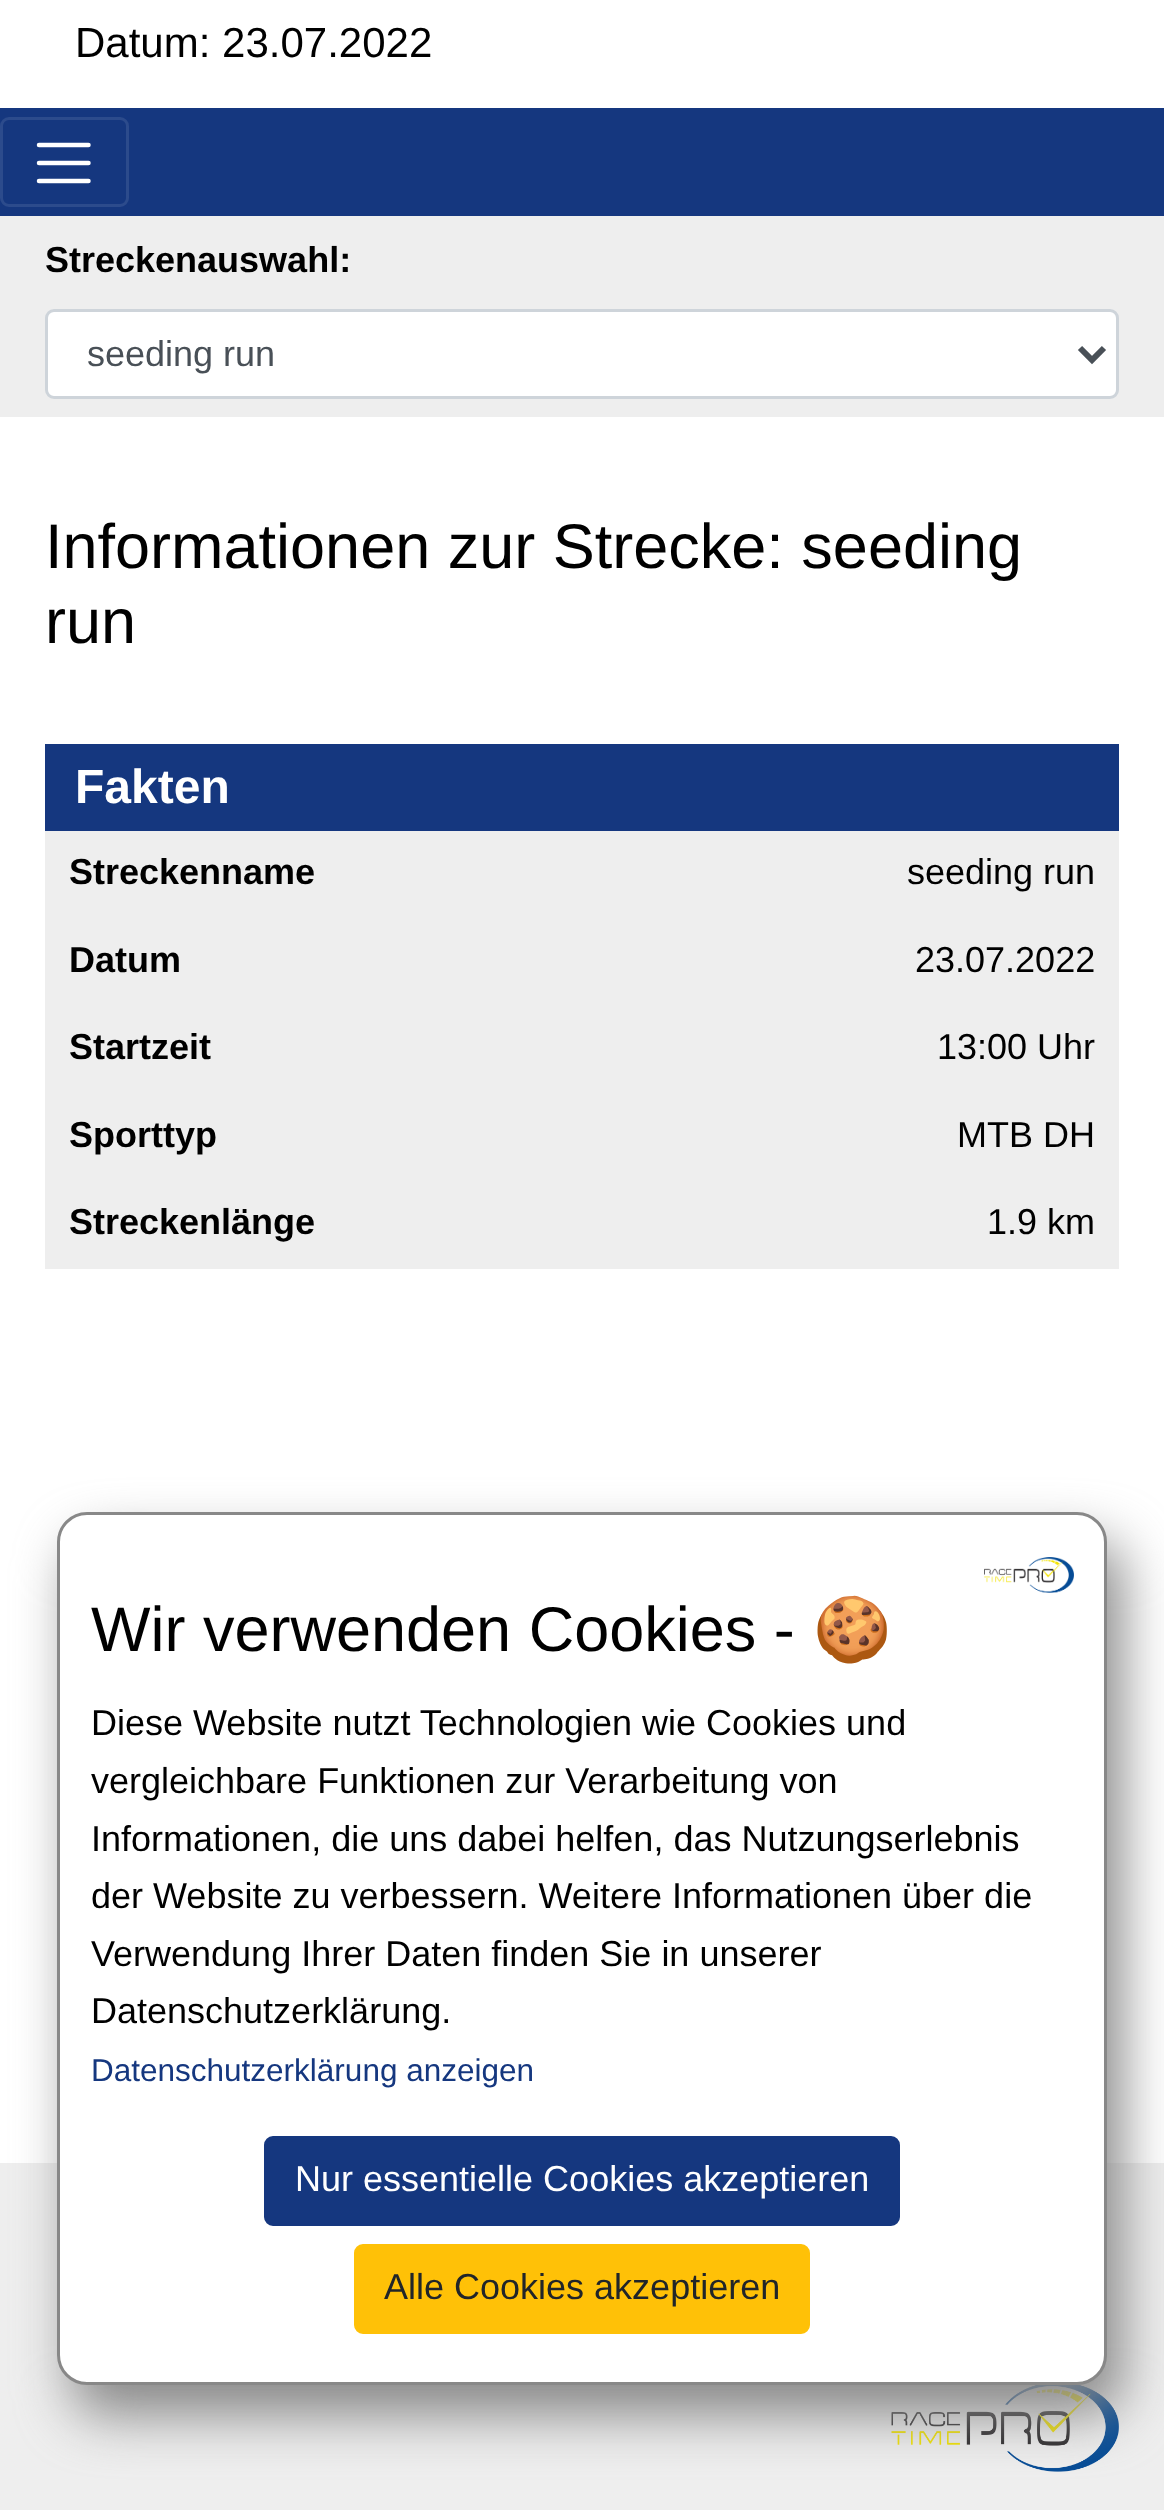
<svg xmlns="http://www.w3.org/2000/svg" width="1164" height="2510">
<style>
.a{font:42px Liberation Sans;fill:#000}
.b{font:bold 36px Liberation Sans;fill:#000}
.c{font:36px Liberation Sans;fill:#495057}
.d{font:63px Liberation Sans;fill:#000}
.e{font:bold 48px Liberation Sans;fill:#fff}
.f{font:36px Liberation Sans;fill:#000}
.g{font:63px Noto Color Emoji;fill:#000}
.h{font:31.5px Liberation Sans;fill:#15377f}
.i{font:36px Liberation Sans;fill:#fff}
.j{font:36px Liberation Sans;fill:#212529}
</style>
<rect width="100%" height="100%" fill="#fff"/>
<path fill="#15377f" d="M0 108h1164v108H0z"/>
<rect fill="none" stroke="#2c4b8c" stroke-width="3" x="1.5" y="118.5" width="126" height="87" rx="7.5"/>
<path fill="none" stroke="#fff" stroke-width="4.5" stroke-linecap="round" d="M39 145h49.5m-49.5 18h49.5m-49.5 18h49.5"/>
<path fill="#eee" d="M0 216h1164v201H0z"/>
<rect fill="#fff" stroke="#ced4da" stroke-width="3" x="46.5" y="310.5" width="1071" height="87" rx="7.5"/>
<path fill="none" stroke="#495057" stroke-width="6" d="M1080 348l12 12l12-12"/>
<path fill="#15377f" d="M45 744h1074v87H45z"/>
<path fill="#eee" d="M45 831h1074v87H45z"/>
<path fill="#eee" d="M45 918h1074v87H45z"/>
<path fill="#eee" d="M45 1005h1074v87H45z"/>
<path fill="#eee" d="M45 1092h1074v87H45z"/>
<path fill="#eee" d="M45 1179h1074v90H45z"/>
<path fill="#eee" d="M0 2163h1164v347H0z"/>
<image href="2.png" x="891" y="2384" width="228" height="88"/>
<rect fill="#888" filter="blur(27px)" x="72" y="1542" width="1050" height="873" rx="30"/>
<rect fill="#fff" stroke="#888" stroke-width="3" x="58.5" y="1513.5" width="1047" height="870" rx="28.5"/>
<image href="1.png" x="984" y="1557" width="90" height="36"/>
<rect fill="#15377f" stroke="#15377f" stroke-width="3" x="265.5" y="2137.5" width="633" height="87" rx="7.5"/>
<rect fill="#ffc107" stroke="#ffc107" stroke-width="3" x="355.5" y="2245.5" width="453" height="87" rx="7.5"/>
<text class="a" x="75" y="57">Datum: 23.07.2022</text>
<text class="b" x="45" y="272">Streckenauswahl:</text>
<text class="c" x="87" y="366">seeding run</text>
<text class="d" x="45" y="568">Informationen zur Strecke: seeding</text>
<text class="d" x="45" y="643">run</text>
<text class="e" x="75" y="803">Fakten</text>
<text class="b" x="69" y="884">Streckenname</text>
<text class="f" x="907" y="884">seeding run</text>
<text class="b" x="69" y="972">Datum</text>
<text class="f" x="915" y="972">23.07.2022</text>
<text class="b" x="69" y="1059">Startzeit</text>
<text class="f" x="937" y="1059">13:00 Uhr</text>
<text class="b" x="69" y="1147">Sporttyp</text>
<text class="f" x="957" y="1147">MTB DH</text>
<text class="b" x="69" y="1234">Streckenlänge</text>
<text class="f" x="987" y="1234">1.9 km</text>
<text class="d" x="91" y="1651">Wir verwenden Cookies -</text>
<text class="g" x="813" y="1651">🍪</text>
<text class="f" x="91" y="1735">Diese Website nutzt Technologien wie Cookies und</text>
<text class="f" x="91" y="1793">vergleichbare Funktionen zur Verarbeitung von</text>
<text class="f" x="91" y="1851">Informationen, die uns dabei helfen, das Nutzungserlebnis</text>
<text class="f" x="91" y="1908">der Website zu verbessern. Weitere Informationen über die</text>
<text class="f" x="91" y="1966">Verwendung Ihrer Daten finden Sie in unserer</text>
<text class="f" x="91" y="2023">Datenschutzerklärung.</text>
<text class="h" x="91" y="2081">Datenschutzerklärung anzeigen</text>
<text class="i" x="295" y="2191">Nur essentielle Cookies akzeptieren</text>
<text class="j" x="384" y="2299">Alle Cookies akzeptieren</text>
</svg>
